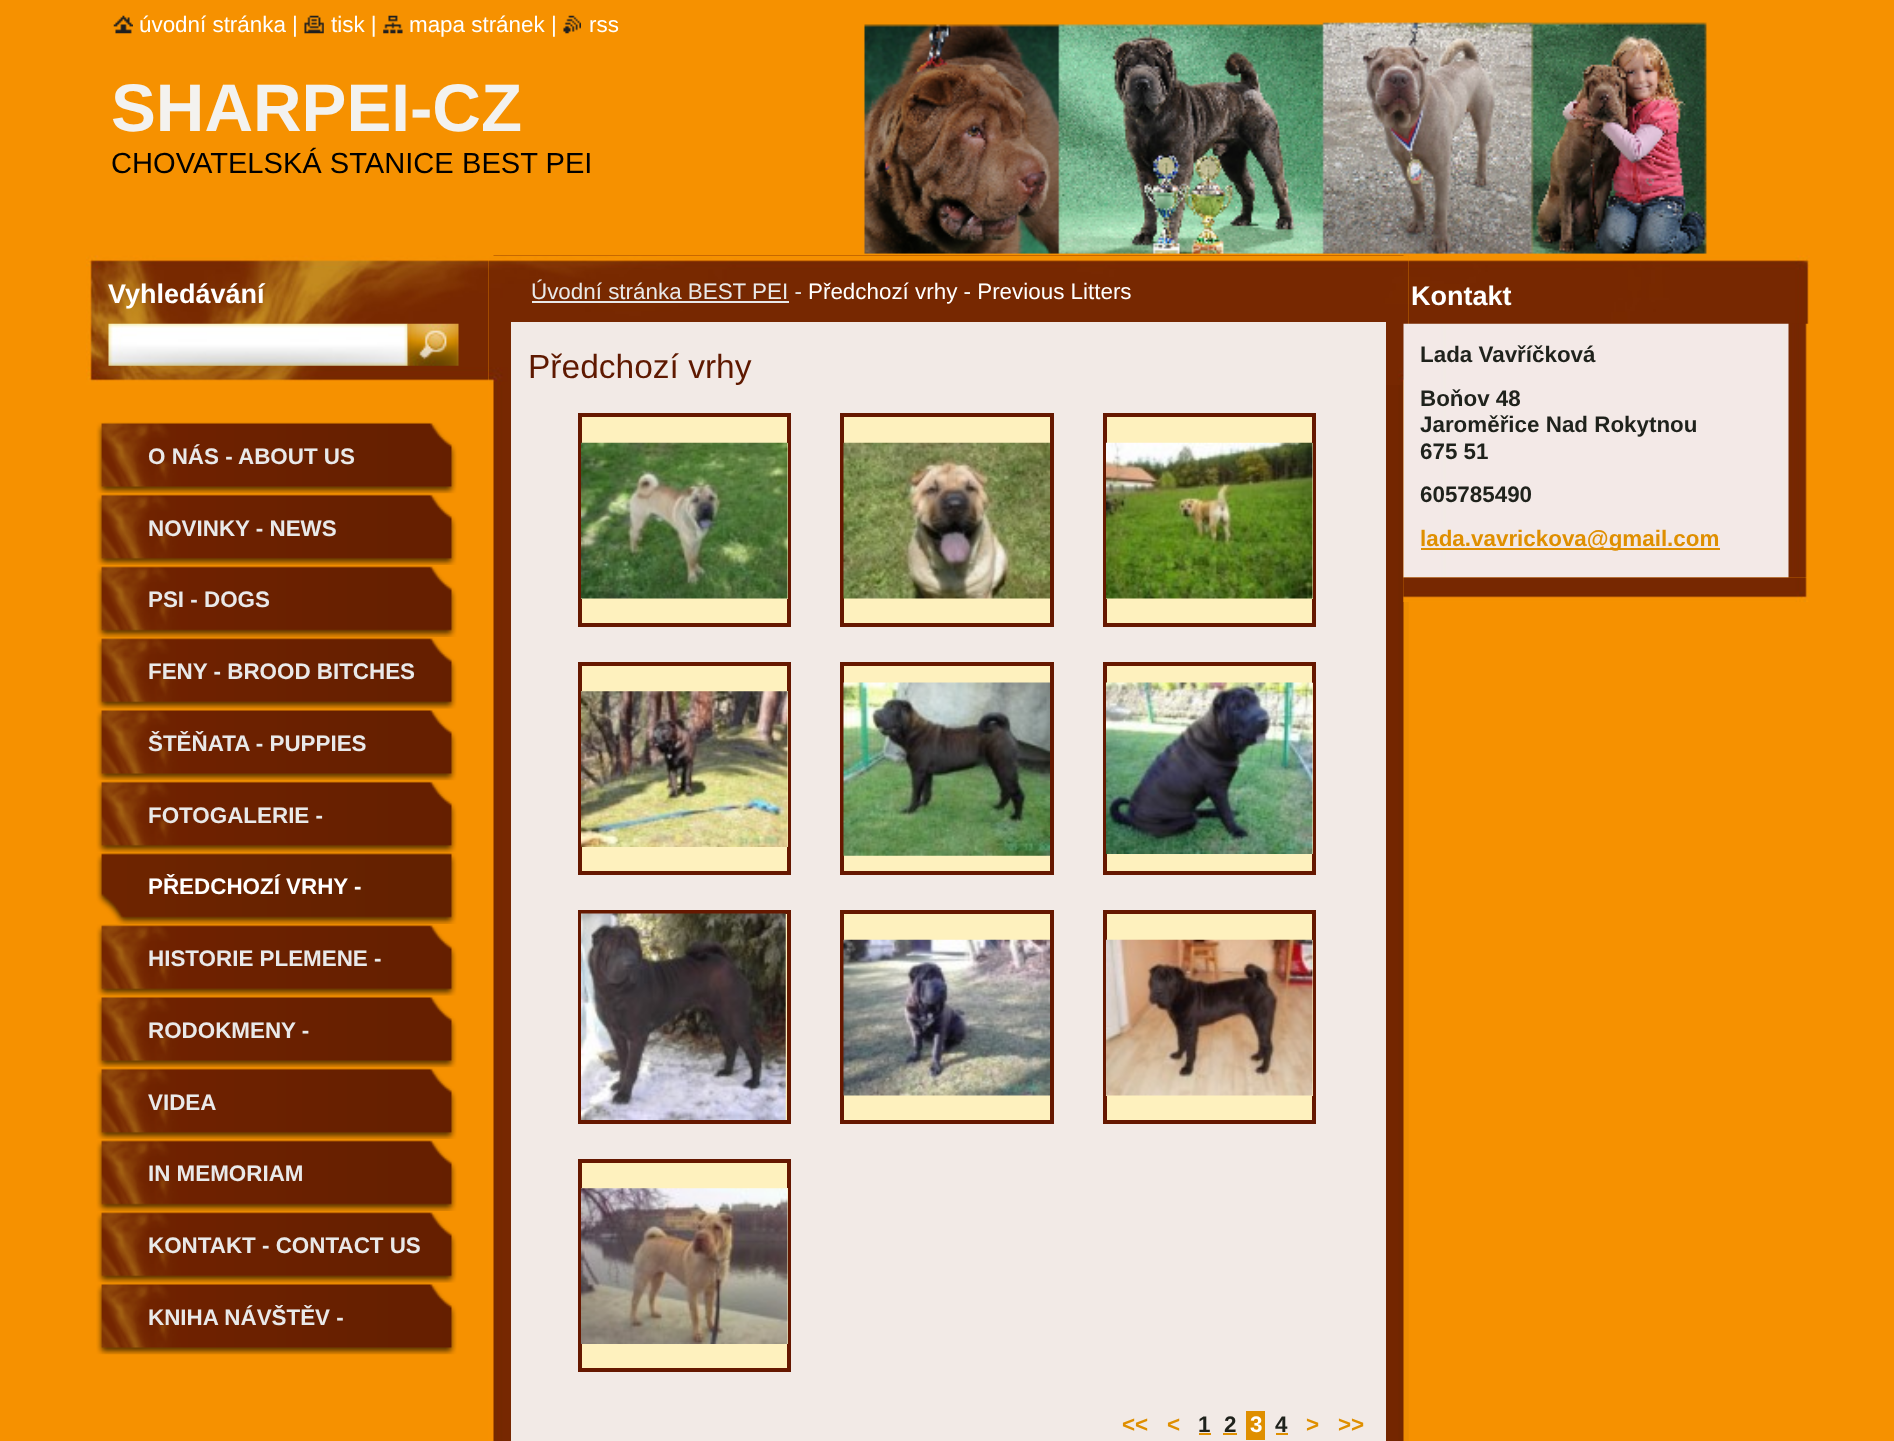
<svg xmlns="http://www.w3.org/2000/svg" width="1894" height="1441">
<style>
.a{font:22.4px Liberation Sans;fill:#fff}
.b{font:bold 67.25px Liberation Sans;fill:#f3f2ef}
.c{font:29.1px Liberation Sans;fill:#000}
.d{font:bold 27px Liberation Sans;fill:#fff}
.e{font:22.4px Liberation Sans;fill:#e9e9e9}
.f{font:33.5px Liberation Sans;fill:#5f1900}
.g{font:bold 22.4px Liberation Sans;fill:#df8f00}
.h{font:bold 22.4px Liberation Sans;fill:#1f221c}
.i{font:bold 22.4px Liberation Sans;fill:#fff}
.j{font:bold 22.4px Liberation Sans;fill:#e9e9e9}
</style>
<rect width="100%" height="100%" fill="#f69100"/>
<image href="1.png" x="113" y="15" width="20" height="19"/>
<image href="2.png" x="304" y="15" width="20" height="19"/>
<image href="3.png" x="383" y="15" width="20" height="19"/>
<image href="4.png" x="563" y="15" width="18" height="19"/>
<image href="5.png" x="864" y="22" width="843" height="232"/>
<image href="6.png" x="86" y="255" width="1724" height="130"/>
<image href="7.png" x="108" y="323" width="300" height="43"/>
<image href="8.png" x="407" y="323" width="52" height="43"/>
<image href="9.png" x="488" y="255" width="921" height="1186"/>
<image href="10.png" x="488" y="255" width="921" height="130"/>
<path fill="#e9e9e9" d="M532 301h257v2H532z"/>
<path fill="#f2eae6" d="M511 322h875v1119H511z"/>
<path fill="#fef1be" stroke="#661800" stroke-width="4" d="M580 415h209v210H580z"/>
<path fill="#fef1be" d="M581 443h207v156H581z"/>
<image href="11.png" x="581" y="442" width="207" height="157"/>
<path fill="#fef1be" stroke="#661800" stroke-width="4" d="M842 415h210v210H842z"/>
<image href="12.png" x="843" y="442" width="207" height="157"/>
<path fill="#fef1be" stroke="#661800" stroke-width="4" d="M1105 415h209v210H1105z"/>
<path fill="#fef1be" d="M1106 443h207v156H1106z"/>
<image href="13.png" x="1106" y="442" width="207" height="157"/>
<path fill="#fef1be" stroke="#661800" stroke-width="4" d="M580 664h209v209H580z"/>
<path fill="#fef1be" d="M581 691h207v156H581z"/>
<image href="14.png" x="581" y="691" width="207" height="156"/>
<path fill="#fef1be" stroke="#661800" stroke-width="4" d="M842 664h210v209H842z"/>
<image href="15.png" x="843" y="682" width="207" height="174"/>
<path fill="#fef1be" stroke="#661800" stroke-width="4" d="M1105 664h209v209H1105z"/>
<path fill="#fef1be" d="M1312 683h1v171H1312z"/>
<image href="16.png" x="1106" y="682" width="207" height="172"/>
<path fill="#fef1be" d="M785 914h2v206H785z"/>
<path fill="none" stroke="#661800" stroke-width="4" d="M580 912h209v210H580z"/>
<image href="17.png" x="581" y="913" width="205" height="207"/>
<path fill="#fef1be" stroke="#661800" stroke-width="4" d="M842 912h210v210H842z"/>
<image href="18.png" x="843" y="939" width="207" height="157"/>
<path fill="#fef1be" stroke="#661800" stroke-width="4" d="M1105 912h209v210H1105z"/>
<path fill="#fef1be" d="M1106 940h207v156H1106z"/>
<image href="19.png" x="1106" y="939" width="207" height="157"/>
<path fill="#fef1be" stroke="#661800" stroke-width="4" d="M580 1161h209v209H580z"/>
<path fill="#fef1be" d="M581 1188h207v156H581z"/>
<image href="20.png" x="581" y="1188" width="207" height="156"/>
<path fill="#df8f00" d="M1199 1433h12v2H1199z"/>
<path fill="#df8f00" d="M1223 1433h14v2H1223z"/>
<path fill="#df8f00" d="M1246 1411h19v29H1246z"/>
<path fill="#df8f00" d="M1276 1433h12v2H1276z"/>
<image href="21.png" x="1403" y="323" width="407" height="255"/>
<path fill="#df8f00" d="M1421 548h299v2H1421z"/>
<image href="22.png" x="1403" y="577" width="406" height="25"/>
<image href="23.png" x="96" y="422" width="361" height="72"/>
<image href="24.png" x="96" y="494" width="361" height="71"/>
<image href="25.png" x="96" y="565" width="361" height="72"/>
<image href="26.png" x="96" y="637" width="361" height="72"/>
<image href="23.png" x="96" y="709" width="361" height="72"/>
<image href="24.png" x="96" y="781" width="361" height="71"/>
<image href="27.png" x="96" y="852" width="361" height="72"/>
<image href="26.png" x="96" y="924" width="361" height="72"/>
<image href="23.png" x="96" y="996" width="361" height="72"/>
<image href="24.png" x="96" y="1068" width="361" height="71"/>
<image href="25.png" x="96" y="1139" width="361" height="72"/>
<image href="26.png" x="96" y="1211" width="361" height="72"/>
<image href="23.png" x="96" y="1283" width="361" height="72"/>
<text class="a" x="139" y="32">úvodní stránka |</text>
<text class="a" x="331" y="32">tisk |</text>
<text class="a" x="409" y="32">mapa stránek |</text>
<text class="a" x="589" y="32">rss</text>
<text class="b" x="111" y="131">SHARPEI-CZ</text>
<text class="c" x="111" y="173">CHOVATELSKÁ STANICE</text>
<text class="c" x="462" y="173">BEST PEI</text>
<text class="d" x="108" y="303">Vyhledávání</text>
<text class="e" x="531" y="299">Úvodní stránka BEST PEI -</text>
<text class="a" x="808" y="299">Předchozí vrhy - Previous Litters</text>
<text class="f" x="528" y="378">Předchozí vrhy</text>
<text class="g" x="1122" y="1432">&lt;&lt;</text>
<text class="g" x="1167" y="1432">&lt;</text>
<text class="h" x="1198" y="1432">1</text>
<text class="h" x="1224" y="1432">2</text>
<text class="i" x="1250" y="1432">3</text>
<text class="h" x="1275" y="1432">4</text>
<text class="g" x="1306" y="1432">&gt;</text>
<text class="g" x="1338" y="1432">&gt;&gt;</text>
<text class="d" x="1411" y="305">Kontakt</text>
<text class="h" x="1420" y="362">Lada Vavříčková</text>
<text class="h" x="1420" y="406">Boňov 48</text>
<text class="h" x="1420" y="432">Jaroměřice Nad Rokytnou</text>
<text class="h" x="1420" y="459">675 51</text>
<text class="h" x="1420" y="502">605785490</text>
<text class="g" x="1420" y="546">lada.vavrickova@gmail.com</text>
<text class="j" x="148" y="464">O NÁS -</text>
<text class="j" x="238" y="464">ABOUT US</text>
<text class="j" x="148" y="536">NOVINKY - NEWS</text>
<text class="j" x="148" y="607">PSI - DOGS</text>
<text class="j" x="148" y="679">FENY - BROOD BITCHES</text>
<text class="j" x="148" y="751">ŠTĚŇATA - PUPPIES</text>
<text class="j" x="148" y="823">FOTOGALERIE -</text>
<text class="i" x="148" y="894">PŘEDCHOZÍ VRHY -</text>
<text class="j" x="148" y="966">HISTORIE PLEMENE -</text>
<text class="j" x="148" y="1038">RODOKMENY -</text>
<text class="j" x="148" y="1110">VIDEA</text>
<text class="j" x="148" y="1181">IN MEMORIAM</text>
<text class="j" x="148" y="1253">KONTAKT - CONTACT US</text>
<text class="j" x="148" y="1325">KNIHA NÁVŠTĚV -</text>
</svg>
